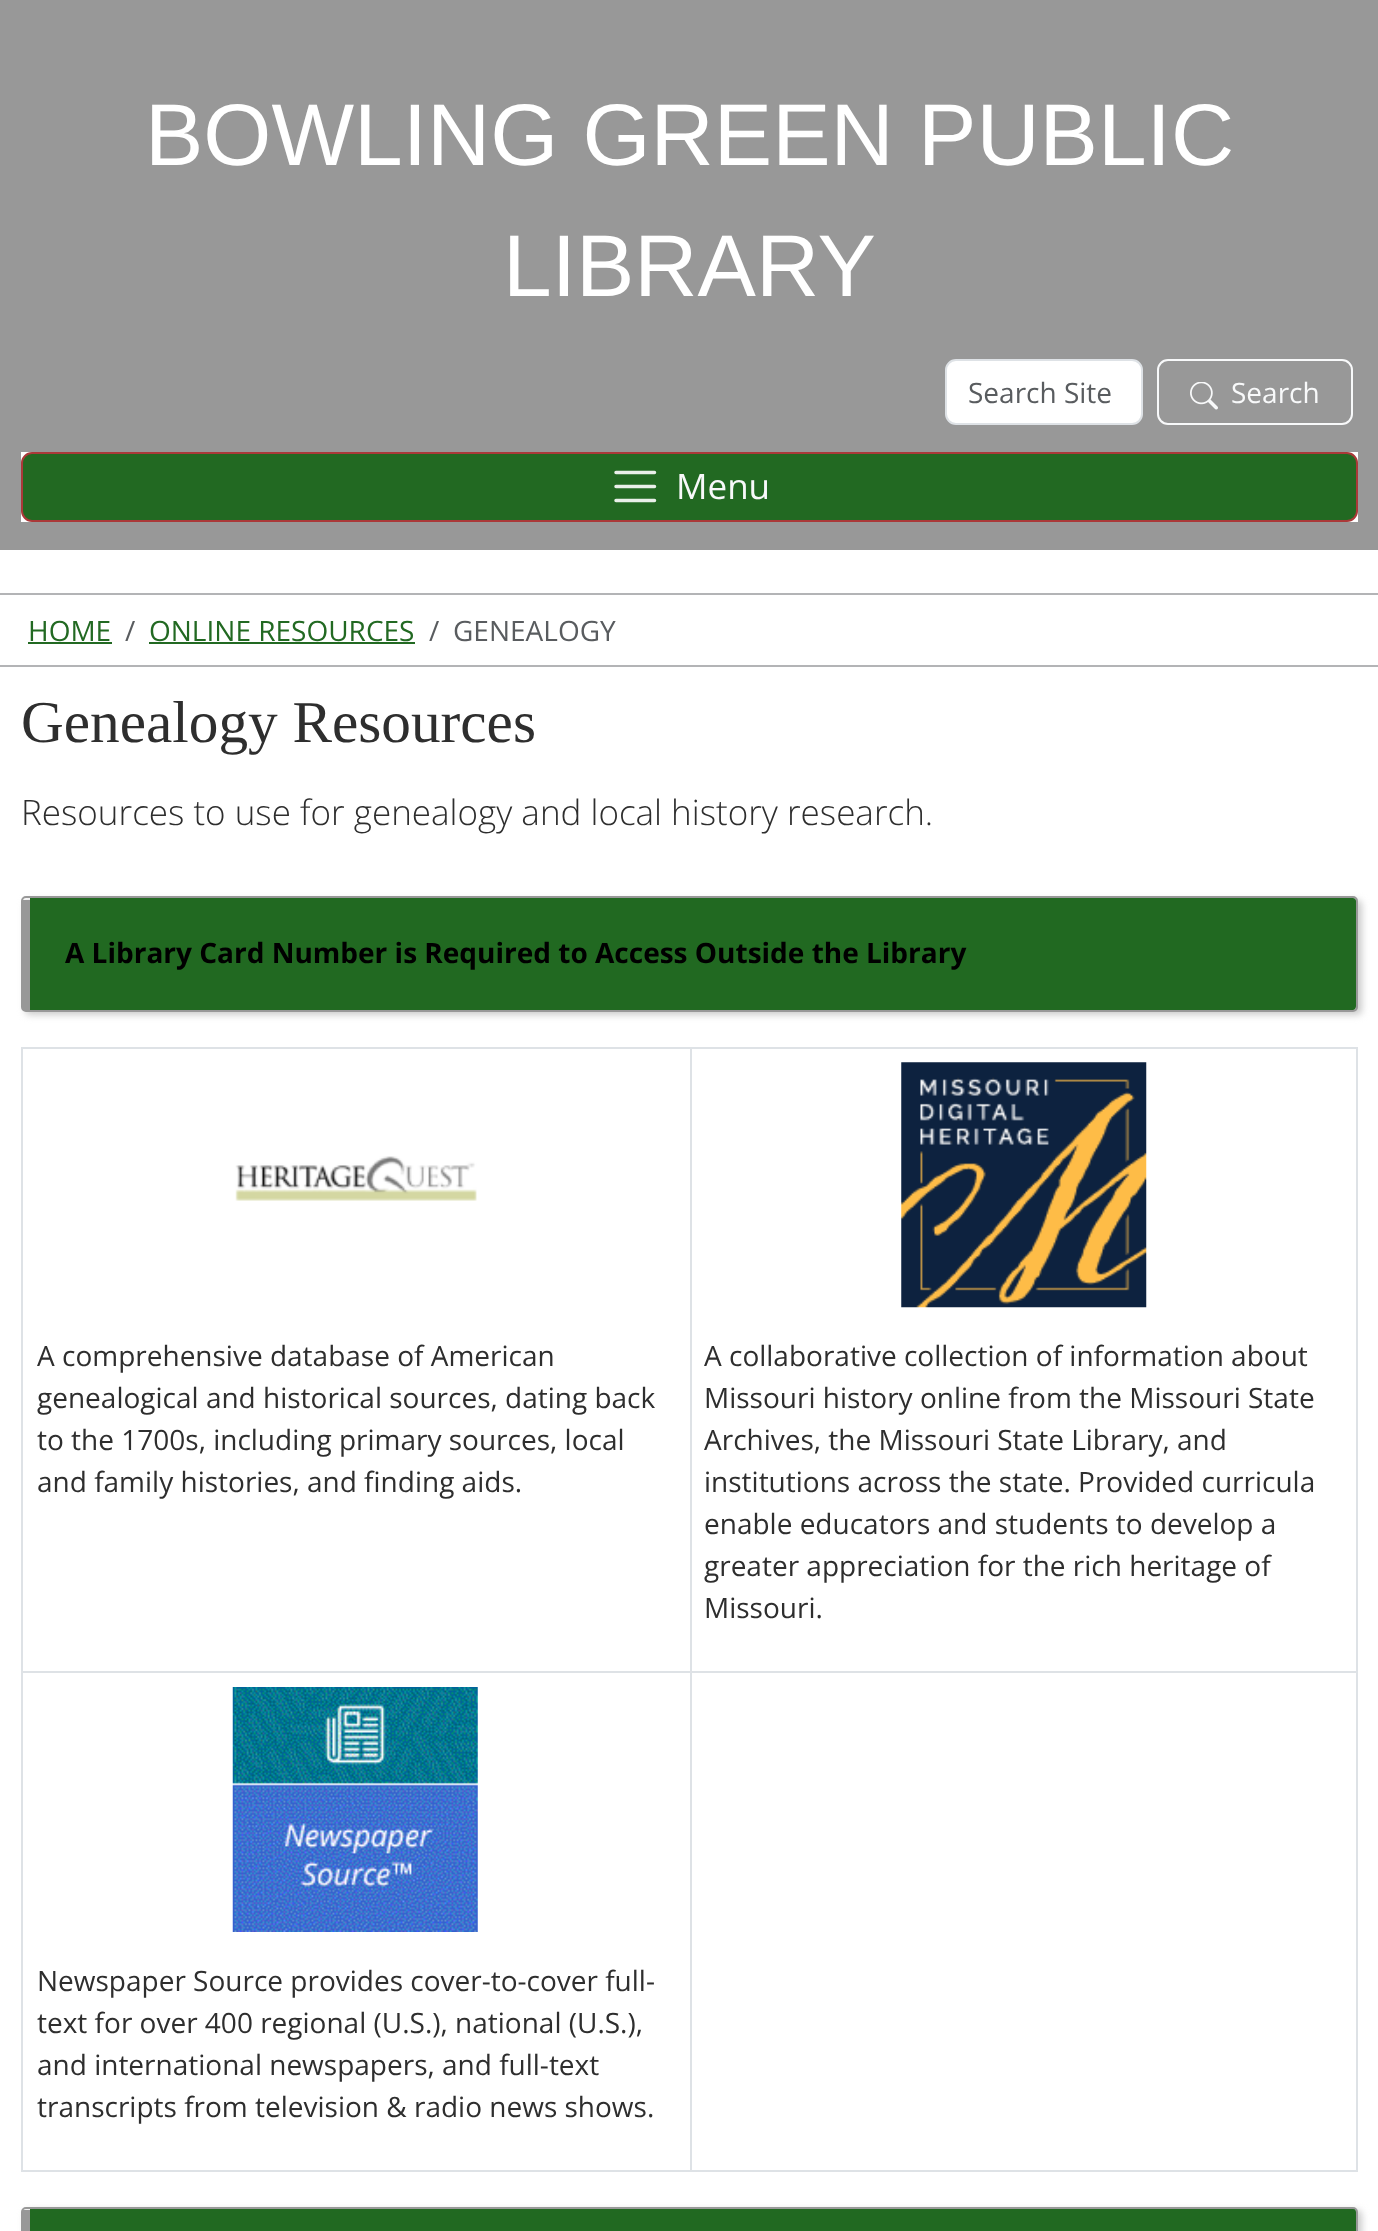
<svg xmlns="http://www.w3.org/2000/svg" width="1378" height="2231">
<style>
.a{font:87.5px Liberation Sans;fill:#fff}
.b{font:28px Open Sans;fill:#595c5f}
.c{font:28px Open Sans;fill:#f8f9fa}
.d{font:35px Open Sans;fill:#f8f9fa}
.e{font:28px Open Sans;fill:#226922}
.f{font:59.25px Liberation Serif;fill:#2e2e2e}
.g{font:300 35px Open Sans;fill:#2e2e2e}
.h{font:bold 28px Open Sans;fill:#000}
.i{font:28px Open Sans;fill:#2e2e2e}
</style>
<rect width="100%" height="100%" fill="#fff"/>
<path fill="#989898" d="M0 0h1378v550H0z"/>
<rect fill="#fff" stroke="#dee2e6" stroke-width="2" x="946" y="360" width="196" height="64" rx="10"/>
<rect fill="none" stroke="#f8f9fa" stroke-width="2" x="1158" y="360" width="194" height="64" rx="10"/>
<image href="1.png" x="1190" y="382" width="28" height="28"/>
<path fill="#fff" d="M21 452h1337v70H21z"/>
<rect fill="#226922" stroke="#aa3939" stroke-width="2" x="22" y="453" width="1335" height="68" rx="10"/>
<path fill="none" stroke="#e9f0e9" stroke-width="3.5" stroke-linecap="round" d="M616 472.5h38.5m-38.5 14h38.5m-38.5 14h38.5"/>
<path fill="#b3b4b6" d="M0 593h1378v2H0z"/>
<path fill="#b3b4b6" d="M0 665h1378v2H0z"/>
<path fill="#226922" d="M28 642h84v2H28z"/>
<path fill="#226922" d="M149 642h266v2H149z"/>
<rect fill="#ccc" filter="blur(3.5px)" x="25" y="900" width="1337" height="115" rx="5"/>
<path fill="#216921" d="M30 898h1323c2 0 3 1 3 3v105c0 2-1 4-3 4h-1323z"/>
<rect fill="none" stroke="#989898" stroke-width="2" x="22" y="897" width="1335" height="114" rx="4"/>
<path fill="#989898" d="M23 900h7v110H23z"/>
<path fill="#dee2e6" d="M21 1047h1337v2H21z"/>
<path fill="#dee2e6" d="M1356 1047h2v1125H1356z"/>
<path fill="#dee2e6" d="M21 2170h1337v2H21z"/>
<path fill="#dee2e6" d="M21 1047h2v1125H21z"/>
<image href="2.png" x="235" y="1156" width="242" height="45"/>
<image href="3.png" x="901" y="1062" width="246" height="246"/>
<path fill="#dee2e6" d="M21 1671h1337v2H21z"/>
<image href="4.png" x="232" y="1687" width="246" height="245"/>
<path fill="#dee2e6" d="M690 1047h2v1125H690z"/>
<rect fill="#ccc" filter="blur(3.5px)" x="25" y="2210" width="1337" height="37" rx="5"/>
<path fill="#216921" d="M30 2208h1323c2 0 3 2 3 4v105c0 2-1 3-3 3h-1323z"/>
<rect fill="none" stroke="#989898" stroke-width="2" x="22" y="2208" width="1335" height="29" rx="4"/>
<path fill="#989898" d="M23 2210h7v21H23z"/>
<text class="a" x="145" y="165">BOWLING GREEN PUBLIC</text>
<text class="a" x="503" y="296">LIBRARY</text>
<text class="b" x="968" y="403">Search Site</text>
<text class="c" x="1231" y="403">Search</text>
<text class="d" x="676" y="499">Menu</text>
<text class="e" x="28" y="641">HOME</text>
<text class="b" x="125" y="641">/</text>
<text class="e" x="149" y="641">ONLINE RESOURCES</text>
<text class="b" x="429" y="641">/</text>
<text class="b" x="453" y="641">GENEALOGY</text>
<text class="f" x="21" y="742">Genealogy Resources</text>
<text class="g" x="21" y="825">Resources to use for genealogy and local history research.</text>
<text class="h" x="65" y="963">A Library Card Number is Required to Access Outside the Library</text>
<text class="i" x="37" y="1366">A comprehensive database of American</text>
<text class="i" x="37" y="1408">genealogical and historical sources, dating back</text>
<text class="i" x="37" y="1450">to the 1700s, including primary sources, local</text>
<text class="i" x="37" y="1492">and family histories, and finding aids.</text>
<text class="i" x="704" y="1366">A collaborative collection of information about</text>
<text class="i" x="704" y="1408">Missouri history online from the Missouri State</text>
<text class="i" x="704" y="1450">Archives, the Missouri State Library, and</text>
<text class="i" x="704" y="1492">institutions across the state. Provided curricula</text>
<text class="i" x="704" y="1534">enable educators and students to develop a</text>
<text class="i" x="704" y="1576">greater appreciation for the rich heritage of</text>
<text class="i" x="704" y="1618">Missouri.</text>
<text class="i" x="37" y="1991">Newspaper Source provides cover-to-cover full-</text>
<text class="i" x="37" y="2033">text for over 400 regional (U.S.), national (U.S.),</text>
<text class="i" x="37" y="2075">and international newspapers, and full-text</text>
<text class="i" x="37" y="2117">transcripts from television &amp; radio news shows.</text>
</svg>
